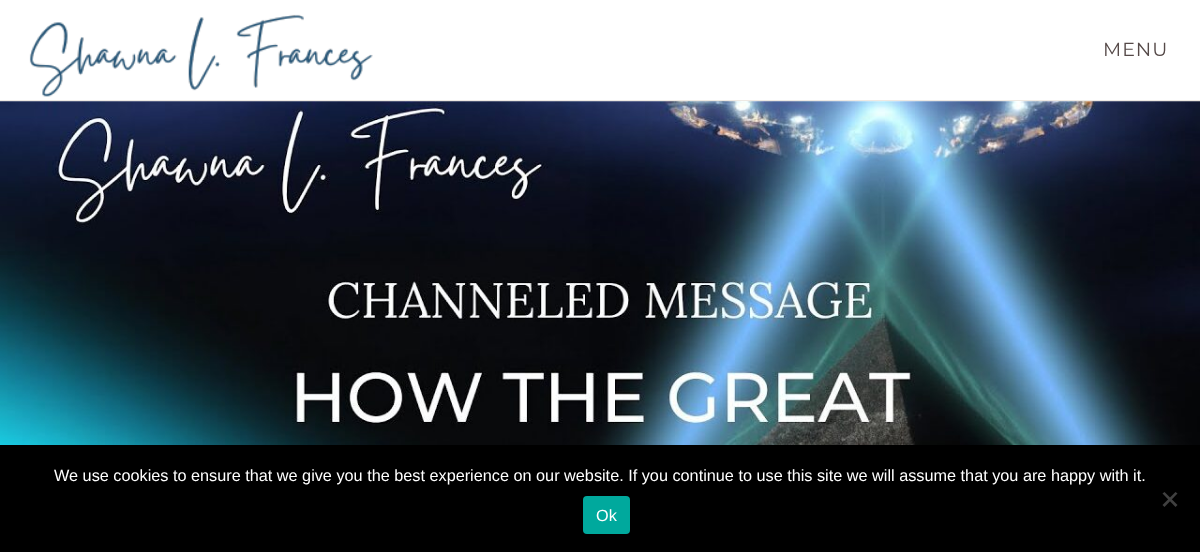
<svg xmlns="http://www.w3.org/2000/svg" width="1200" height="552">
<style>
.a{font:19px Montserrat;letter-spacing:1px;fill:#554948}
.b{font:16.25px Liberation Sans;fill:#fff}
</style>
<rect width="100%" height="100%" fill="#fff"/>
<path fill="#eee9e3" d="M0 100h1200v1H0z"/>
<image href="1.png" x="29" y="14" width="344" height="83"/>
<image href="3.png" x="194" y="101" width="38" height="1"/>
<image href="2.png" x="0" y="101" width="1200" height="344"/>
<path fill="#000" d="M0 445h1200v107H0z"/>
<path fill="#404040" d="M1175.5 492l2 1.5l-13 13.5l-2-2z"/>
<path fill="#404040" d="M1162.5 493.5l2-1.5l13 13l-2 2z"/>
<rect fill="#00a99d" x="583" y="496" width="47" height="38" rx="4"/>
<text class="a" x="1103" y="56">MENU</text>
<text class="b" x="54" y="481">We use cookies to ensure that we give you the best experience on our website. If you continue to use this site we will assume that you are happy with it.</text>
<text class="b" x="596" y="521">Ok</text>
</svg>
